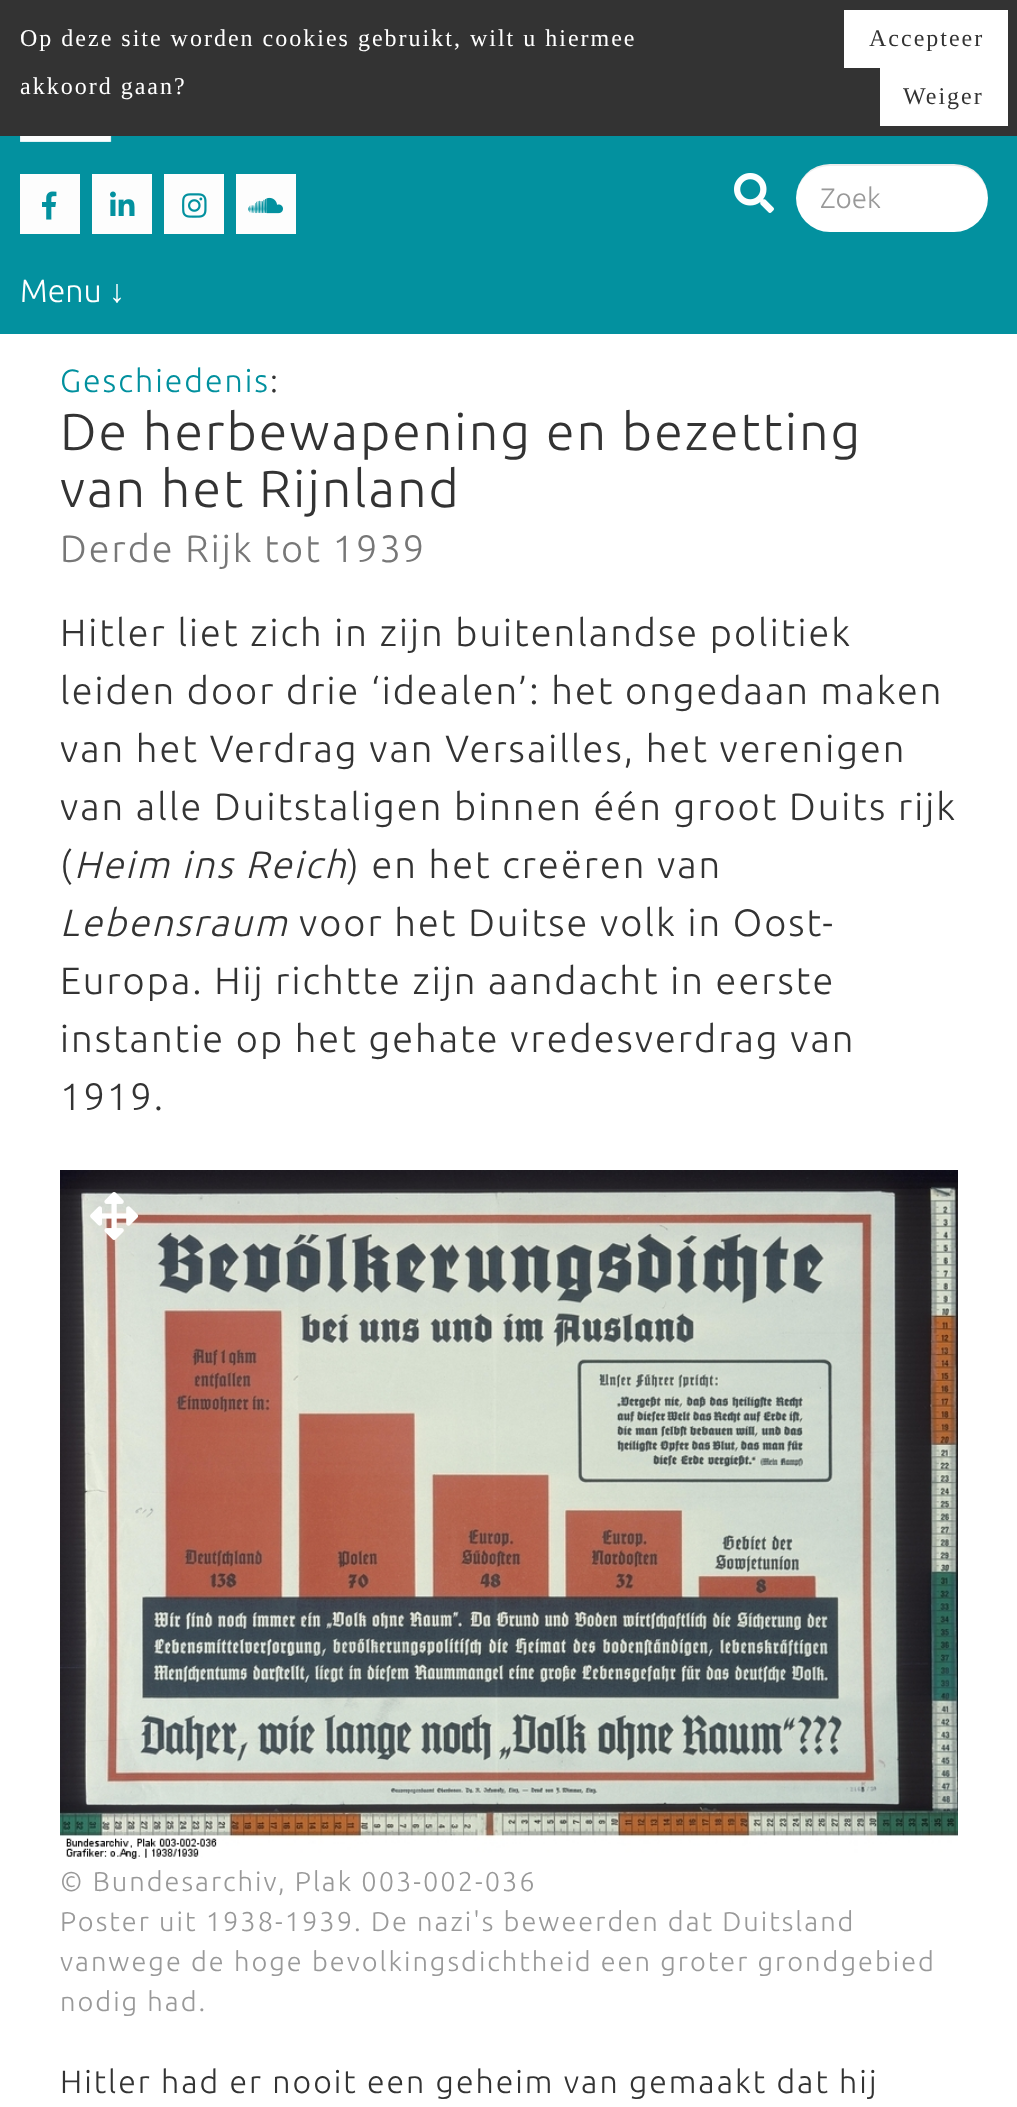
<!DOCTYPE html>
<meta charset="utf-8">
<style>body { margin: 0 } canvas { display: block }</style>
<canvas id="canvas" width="1017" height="2107"></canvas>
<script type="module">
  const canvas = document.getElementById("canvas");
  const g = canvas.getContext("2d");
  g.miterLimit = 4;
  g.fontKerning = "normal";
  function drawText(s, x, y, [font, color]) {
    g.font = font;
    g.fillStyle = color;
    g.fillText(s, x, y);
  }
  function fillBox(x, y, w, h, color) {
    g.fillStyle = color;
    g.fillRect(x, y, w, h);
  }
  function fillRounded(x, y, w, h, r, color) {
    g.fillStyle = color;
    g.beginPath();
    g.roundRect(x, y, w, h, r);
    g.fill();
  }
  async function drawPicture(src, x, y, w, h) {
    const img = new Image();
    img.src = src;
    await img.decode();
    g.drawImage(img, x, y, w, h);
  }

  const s1 = ["24px Liberation Serif", "#FFFFFF"];
  const s2 = ["24px Liberation Serif", "#333333"];
  const s3 = ["300 28px Ubuntu", "#999999"];
  const s4 = ["300 32px Ubuntu", "#FFFFFF"];
  const s5 = ["32px Liberation Serif", "#FFFFFF"];
  const s6 = ["300 32px Ubuntu", "#00909E"];
  const s7 = ["300 32px Ubuntu", "#333333"];
  const s8 = ["300 52px Ubuntu", "#333333"];
  const s9 = ["300 38px Ubuntu", "#777777"];
  const s10 = ["300 38px Ubuntu", "#333333"];
  const s11 = ["italic 300 38px Ubuntu", "#333333"];
  const s12 = ["300 27.2px Ubuntu", "#999999"];

  fillBox(0, 0, 1017, 2107, "#FFFFFF");
  fillBox(0, 0, 1017, 136, "#333333");
  g.letterSpacing = "2px";
  drawText("Op deze site worden cookies gebruikt, wilt u hiermee", 20, 46, s1);
  drawText("akkoord gaan?", 20, 94, s1);
  fillBox(844, 10, 164, 58, "#FFFFFF");
  drawText("Accepteer", 869, 46, s2);
  fillBox(880, 68, 128, 58, "#FFFFFF");
  drawText("Weiger", 903, 104, s2);
  fillBox(0, 136, 1017, 198, "#03919F");
  await drawPicture("pic1.png", 20, 136, 92, 6);
  fillBox(20, 174, 60, 60, "#FDFDFD");
  await drawPicture("pic2.png", 42, 191, 15, 29);
  fillBox(92, 174, 60, 60, "#FDFDFD");
  await drawPicture("pic3.png", 110, 191, 25, 25);
  fillBox(164, 174, 60, 60, "#FDFDFD");
  await drawPicture("pic4.png", 182, 193, 25, 25);
  fillBox(236, 174, 60, 60, "#FDFDFD");
  await drawPicture("pic5.png", 248, 197, 35, 17);
  await drawPicture("pic6.png", 734, 173, 40, 40);
  fillRounded(796, 164, 192, 68, 34, "#FFFFFF");
  g.fillStyle = "rgba(3, 3, 3, 0.07)";
  g.beginPath();
  g.moveTo(830, 166);
  g.lineTo(954, 166);
  g.bezierCurveTo(973, 166, 987, 180, 988, 199);
  g.lineTo(988, 198);
  g.bezierCurveTo(988, 179, 973, 164, 954, 164);
  g.lineTo(830, 164);
  g.bezierCurveTo(811, 164, 796, 179, 796, 198);
  g.lineTo(796, 199);
  g.bezierCurveTo(797, 180, 811, 166, 830, 166);
  g.closePath();
  g.fill();
  g.letterSpacing = "0px";
  drawText("Zoek", 820, 208, s3);
  drawText("Menu", 20, 302, s4);
  drawText("↓", 109, 302, s5);
  g.letterSpacing = "2px";
  drawText("Geschiedenis", 60, 392, s6);
  drawText(":", 270, 392, s7);
  drawText("De herbewapening en bezetting", 60, 450, s8);
  drawText("van het Rijnland", 60, 507, s8);
  drawText("Derde Rijk tot 1939", 60, 562, s9);
  drawText("Hitler liet zich in zijn buitenlandse politiek", 60, 646, s10);
  drawText("leiden door drie ‘idealen’: het ongedaan maken", 60, 704, s10);
  drawText("van het Verdrag van Versailles, het verenigen", 60, 762, s10);
  drawText("van alle Duitstaligen binnen één groot Duits rijk", 60, 820, s10);
  drawText("(", 60, 878, s10);
  drawText("Heim ins Reich", 74, 878, s11);
  drawText(") en het creëren van", 347, 878, s10);
  drawText("Lebensraum", 60, 936, s11);
  drawText("voor het Duitse volk in Oost-", 299, 936, s10);
  drawText("Europa. Hij richtte zijn aandacht in eerste", 60, 994, s10);
  drawText("instantie op het gehate vredesverdrag van", 60, 1052, s10);
  drawText("1919.", 60, 1110, s10);
  await drawPicture("pic7.png", 60, 1170, 898, 689);
  await drawPicture("pic8.png", 90, 1192, 49, 48);
  drawText("© Bundesarchiv, Plak 003-002-036", 60, 1891, s12);
  drawText("Poster uit 1938-1939. De nazi's beweerden dat Duitsland", 60, 1931, s12);
  drawText("vanwege de hoge bevolkingsdichtheid een groter grondgebied", 60, 1971, s12);
  drawText("nodig had.", 60, 2011, s12);
  drawText("Hitler had er nooit een geheim van gemaakt dat hij", 60, 2093, s7);
</script>
